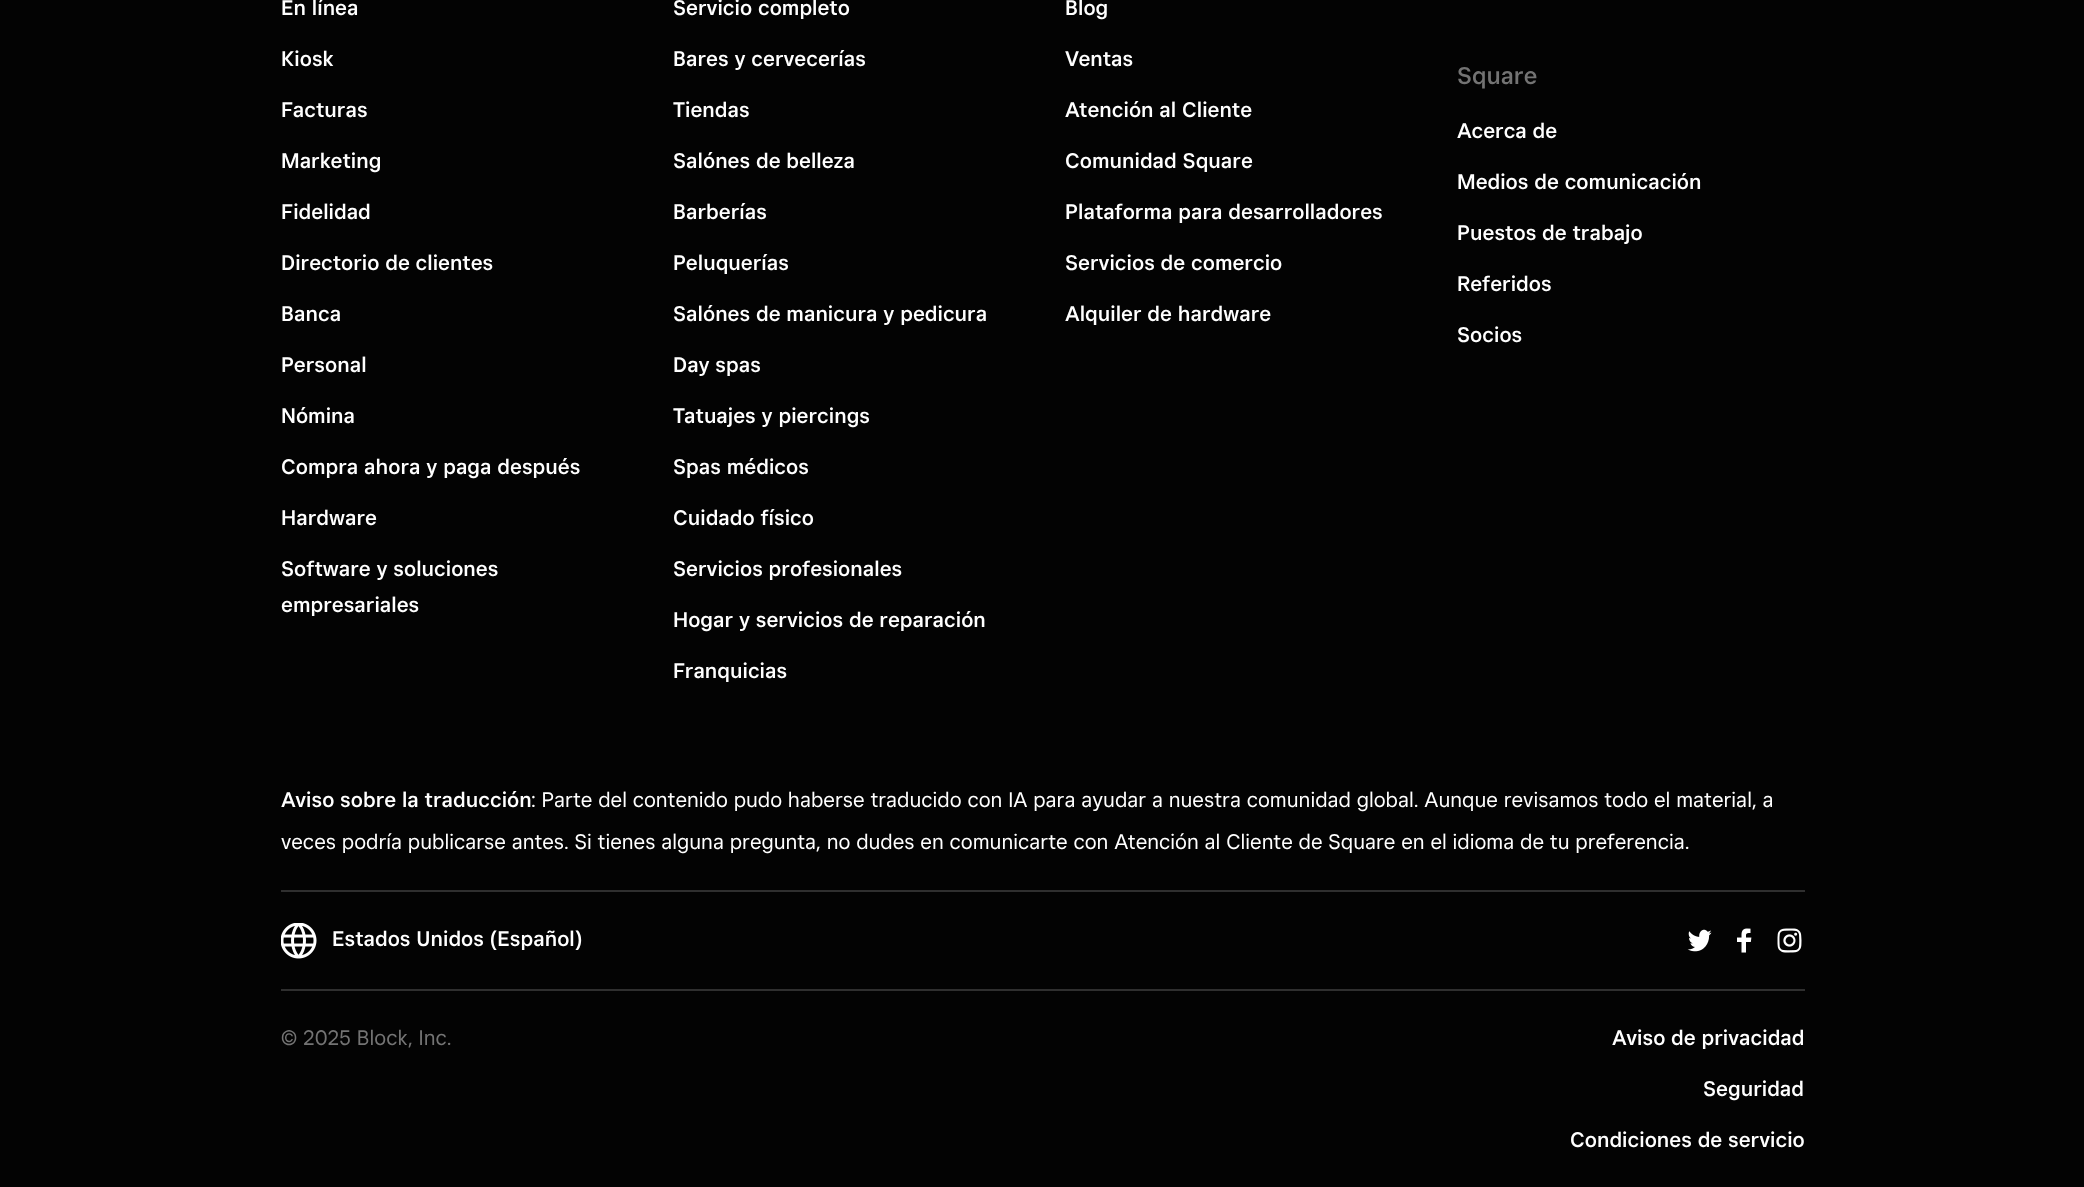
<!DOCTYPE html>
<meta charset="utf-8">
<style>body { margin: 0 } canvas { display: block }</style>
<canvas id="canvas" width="2084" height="1187"></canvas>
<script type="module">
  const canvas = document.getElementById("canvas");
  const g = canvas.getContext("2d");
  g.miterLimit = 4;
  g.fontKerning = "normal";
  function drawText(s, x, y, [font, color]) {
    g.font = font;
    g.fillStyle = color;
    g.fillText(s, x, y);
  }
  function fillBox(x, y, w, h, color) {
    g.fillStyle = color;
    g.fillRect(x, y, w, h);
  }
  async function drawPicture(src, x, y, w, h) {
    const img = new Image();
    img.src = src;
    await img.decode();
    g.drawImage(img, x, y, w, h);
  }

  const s1 = ["500 21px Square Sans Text", "#FFFFFF"];
  const s2 = ["500 24px Square Sans Text", "#737373"];
  const s3 = ["21px Square Sans Text", "#FFFFFF"];
  const s4 = ["21px Square Sans Text", "#737373"];

  fillBox(0, 0, 2084, 1187, "#030303");
  drawText("En línea", 281, 15, s1);
  drawText("Kiosk", 281, 66, s1);
  drawText("Facturas", 281, 117, s1);
  drawText("Marketing", 281, 168, s1);
  drawText("Fidelidad", 281, 219, s1);
  drawText("Directorio de clientes", 281, 270, s1);
  drawText("Banca", 281, 321, s1);
  drawText("Personal", 281, 372, s1);
  drawText("Nómina", 281, 423, s1);
  drawText("Compra ahora y paga después", 281, 474, s1);
  drawText("Hardware", 281, 525, s1);
  drawText("Software y soluciones", 281, 576, s1);
  drawText("empresariales", 281, 612, s1);
  drawText("Servicio completo", 673, 15, s1);
  drawText("Bares y cervecerías", 673, 66, s1);
  drawText("Tiendas", 673, 117, s1);
  drawText("Salónes de belleza", 673, 168, s1);
  drawText("Barberías", 673, 219, s1);
  drawText("Peluquerías", 673, 270, s1);
  drawText("Salónes de manicura y pedicura", 673, 321, s1);
  drawText("Day spas", 673, 372, s1);
  drawText("Tatuajes y piercings", 673, 423, s1);
  drawText("Spas médicos", 673, 474, s1);
  drawText("Cuidado físico", 673, 525, s1);
  drawText("Servicios profesionales", 673, 576, s1);
  drawText("Hogar y servicios de reparación", 673, 627, s1);
  drawText("Franquicias", 673, 678, s1);
  drawText("Blog", 1065, 15, s1);
  drawText("Ventas", 1065, 66, s1);
  drawText("Atención al Cliente", 1065, 117, s1);
  drawText("Comunidad Square", 1065, 168, s1);
  drawText("Plataforma para desarrolladores", 1065, 219, s1);
  drawText("Servicios de comercio", 1065, 270, s1);
  drawText("Alquiler de hardware", 1065, 321, s1);
  drawText("Square", 1457, 84, s2);
  drawText("Acerca de", 1457, 138, s1);
  drawText("Medios de comunicación", 1457, 189, s1);
  drawText("Puestos de trabajo", 1457, 240, s1);
  drawText("Referidos", 1457, 291, s1);
  drawText("Socios", 1457, 342, s1);
  drawText("Aviso sobre la traducción", 281, 807, s1);
  drawText(": Parte del contenido pudo haberse traducido con IA para ayudar a nuestra comunidad global. Aunque revisamos todo el material, a", 531, 807, s3);
  drawText("veces podría publicarse antes. Si tienes alguna pregunta, no dudes en comunicarte con Atención al Cliente de Square en el idioma de tu preferencia.", 281, 849, s3);
  fillBox(281, 890, 1524, 2, "#2F2F2F");
  fillBox(281, 989, 1524, 2, "#2F2F2F");
  await drawPicture("pic1.png", 281, 923, 36, 36);
  drawText("Estados Unidos (Español)", 332, 946, s1);
  await drawPicture("pic2.png", 1687, 929, 25, 23);
  await drawPicture("pic3.png", 1737, 928, 15, 25);
  await drawPicture("pic4.png", 1777, 928, 25, 25);
  drawText("© 2025 Block, Inc.", 281, 1045, s4);
  drawText("Aviso de privacidad", 1612, 1045, s1);
  drawText("Seguridad", 1703, 1096, s1);
  drawText("Condiciones de servicio", 1570, 1147, s1);
</script>
